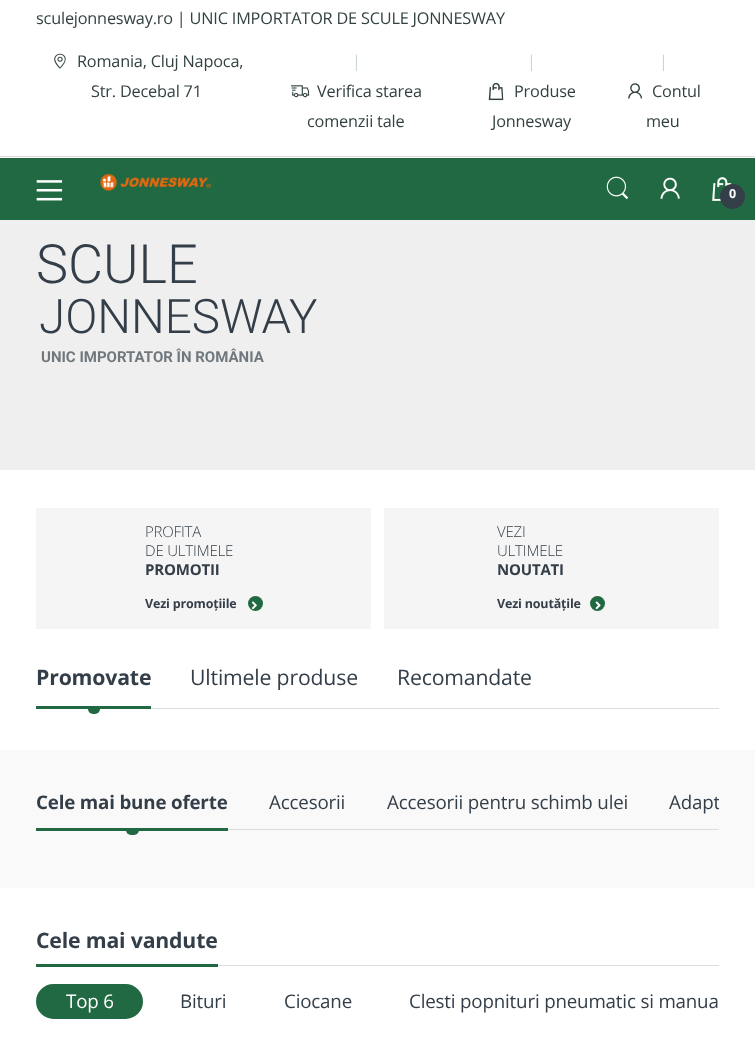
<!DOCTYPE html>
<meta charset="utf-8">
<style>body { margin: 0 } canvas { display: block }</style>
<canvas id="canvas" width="755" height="1064"></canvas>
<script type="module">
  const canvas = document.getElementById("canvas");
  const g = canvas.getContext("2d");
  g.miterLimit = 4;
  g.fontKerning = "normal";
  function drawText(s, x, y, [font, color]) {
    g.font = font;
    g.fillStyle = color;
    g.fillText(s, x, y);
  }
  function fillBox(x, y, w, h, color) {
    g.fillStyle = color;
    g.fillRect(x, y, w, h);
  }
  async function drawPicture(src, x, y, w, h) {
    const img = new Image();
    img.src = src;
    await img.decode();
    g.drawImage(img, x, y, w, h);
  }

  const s1 = ["16.25px Open Sans", "#334141"];
  const s2 = ["16.25px Open Sans", "#CAD5D5"];
  const s3 = ["bold 12.5px Open Sans", "#FFFFFF"];
  const s4 = ["300 54px Roboto", "#333E48"];
  const s5 = ["300 47.5px Roboto", "#333E48"];
  const s6 = ["bold 15px Roboto", "#70787E"];
  const s7 = ["300 15px Open Sans", "#333E48"];
  const s8 = ["bold 15px Open Sans", "#333E48"];
  const s9 = ["bold 12.5px Open Sans", "#333E48"];
  const s10 = ["bold 21.25px Open Sans", "#333E48"];
  const s11 = ["21.25px Open Sans", "#333E48"];
  const s12 = ["bold 18.75px Open Sans", "#333E48"];
  const s13 = ["18.75px Open Sans", "#333E48"];
  const s14 = ["18.75px Open Sans", "#FFFFFF"];

  fillBox(0, 0, 755, 1064, "#FFFFFF");
  fillBox(0, 156, 755, 1, "#DDDDDD");
  g.letterSpacing = "-0.18px";
  drawText("sculejonnesway.ro | UNIC IMPORTATOR DE SCULE JONNESWAY", 36, 24, s1);
  await drawPicture("pic1.png", 54, 53, 12, 16);
  drawText("Romania, Cluj Napoca,", 77, 67, s1);
  drawText("Str. Decebal 71", 91, 97, s1);
  drawText("|", 352, 67, s2);
  await drawPicture("pic2.png", 291, 85, 19, 13);
  drawText("Verifica starea", 317, 97, s1);
  drawText("comenzii tale", 307, 127, s1);
  drawText("|", 527, 67, s2);
  await drawPicture("pic3.png", 488, 82, 16, 19);
  drawText("Produse", 514, 97, s1);
  drawText("Jonnesway", 492, 127, s1);
  drawText("|", 659, 67, s2);
  await drawPicture("pic4.png", 628, 83, 15, 16);
  drawText("Contul", 652, 97, s1);
  drawText("meu", 646, 127, s1);
  fillBox(0, 158, 755, 62, "#216942");
  await drawPicture("pic5.png", 36, 180, 27, 21);
  await drawPicture("pic6.png", 100, 173, 112, 18);
  await drawPicture("pic7.png", 606, 176, 23, 24);
  await drawPicture("pic8.png", 660, 177, 20, 22);
  await drawPicture("pic9.png", 712, 177, 20, 24);
  g.fillStyle = "#333E48";
  g.beginPath();
  g.arc(732.5, 196.5, 12.5, 0, Math.PI * 2);
  g.fill();
  drawText("0", 729, 198, s3);
  fillBox(0, 220, 755, 250, "#EFEFEF");
  g.letterSpacing = "0px";
  drawText("SCULE", 36, 283, s4);
  drawText("JONNESWAY", 39, 333, s5);
  drawText("UNIC IMPORTATOR ÎN ROMÂNIA", 41, 362, s6);
  fillBox(36, 508, 335, 121, "#F5F5F5");
  g.letterSpacing = "-0.18px";
  drawText("PROFITA", 145, 537, s7);
  drawText("DE ULTIMELE", 145, 556, s7);
  drawText("PROMOTII", 145, 575, s8);
  drawText("Vezi promoțiile", 145, 608, s9);
  g.fillStyle = "#216942";
  g.beginPath();
  g.arc(255.5, 603.5, 7.5, 0, Math.PI * 2);
  g.fill();
  await drawPicture("pic10.png", 251, 601, 6, 9);
  fillBox(384, 508, 335, 121, "#F5F5F5");
  drawText("VEZI", 497, 537, s7);
  drawText("ULTIMELE", 497, 556, s7);
  drawText("NOUTATI", 497, 575, s8);
  drawText("Vezi noutățile", 497, 608, s9);
  g.fillStyle = "#216942";
  g.beginPath();
  g.arc(597.5, 603.5, 7.5, 0, Math.PI * 2);
  g.fill();
  await drawPicture("pic11.png", 595, 601, 6, 9);
  drawText("Promovate", 36, 685, s10);
  fillBox(36, 706, 115, 3, "#216942");
  g.beginPath();
  g.roundRect(88, 709, 12, 5, [0, 0, 5, 5]);
  g.fill();
  drawText("Ultimele produse", 190, 685, s11);
  drawText("Recomandate", 397, 685, s11);
  fillBox(151, 708, 568, 1, "#DDDDDD");
  fillBox(0, 750, 755, 138, "#F9F9F9");
  drawText("Cele mai bune oferte", 36, 809, s12);
  g.fillStyle = "#216942";
  g.beginPath();
  g.roundRect(126, 830, 13, 5, [0, 0, 5, 5]);
  g.fill();
  fillBox(36, 828, 192, 3, "#216942");
  drawText("Accesorii", 269, 809, s13);
  drawText("Accesorii pentru schimb ulei", 387, 809, s13);
  g.save();
  g.beginPath();
  g.rect(36, 781, 683, 55);
  g.clip();
  drawText("Adapt", 669, 809, s13);
  g.restore();
  fillBox(228, 829, 491, 1, "#DDDDDD");
  drawText("Cele mai vandute", 36, 948, s10);
  fillBox(36, 964, 182, 3, "#216942");
  fillBox(218, 965, 501, 1, "#DDDDDD");
  g.fillStyle = "#216942";
  g.beginPath();
  g.roundRect(37.5, 985.5, 104, 32, 16);
  g.fill();
  g.strokeStyle = "#216942";
  g.lineWidth = 3;
  g.stroke();
  drawText("Top 6", 66, 1008, s14);
  drawText("Bituri", 180, 1008, s13);
  drawText("Ciocane", 284, 1008, s13);
  drawText("Clesti popnituri pneumatic si manua", 409, 1008, s13);
</script>
